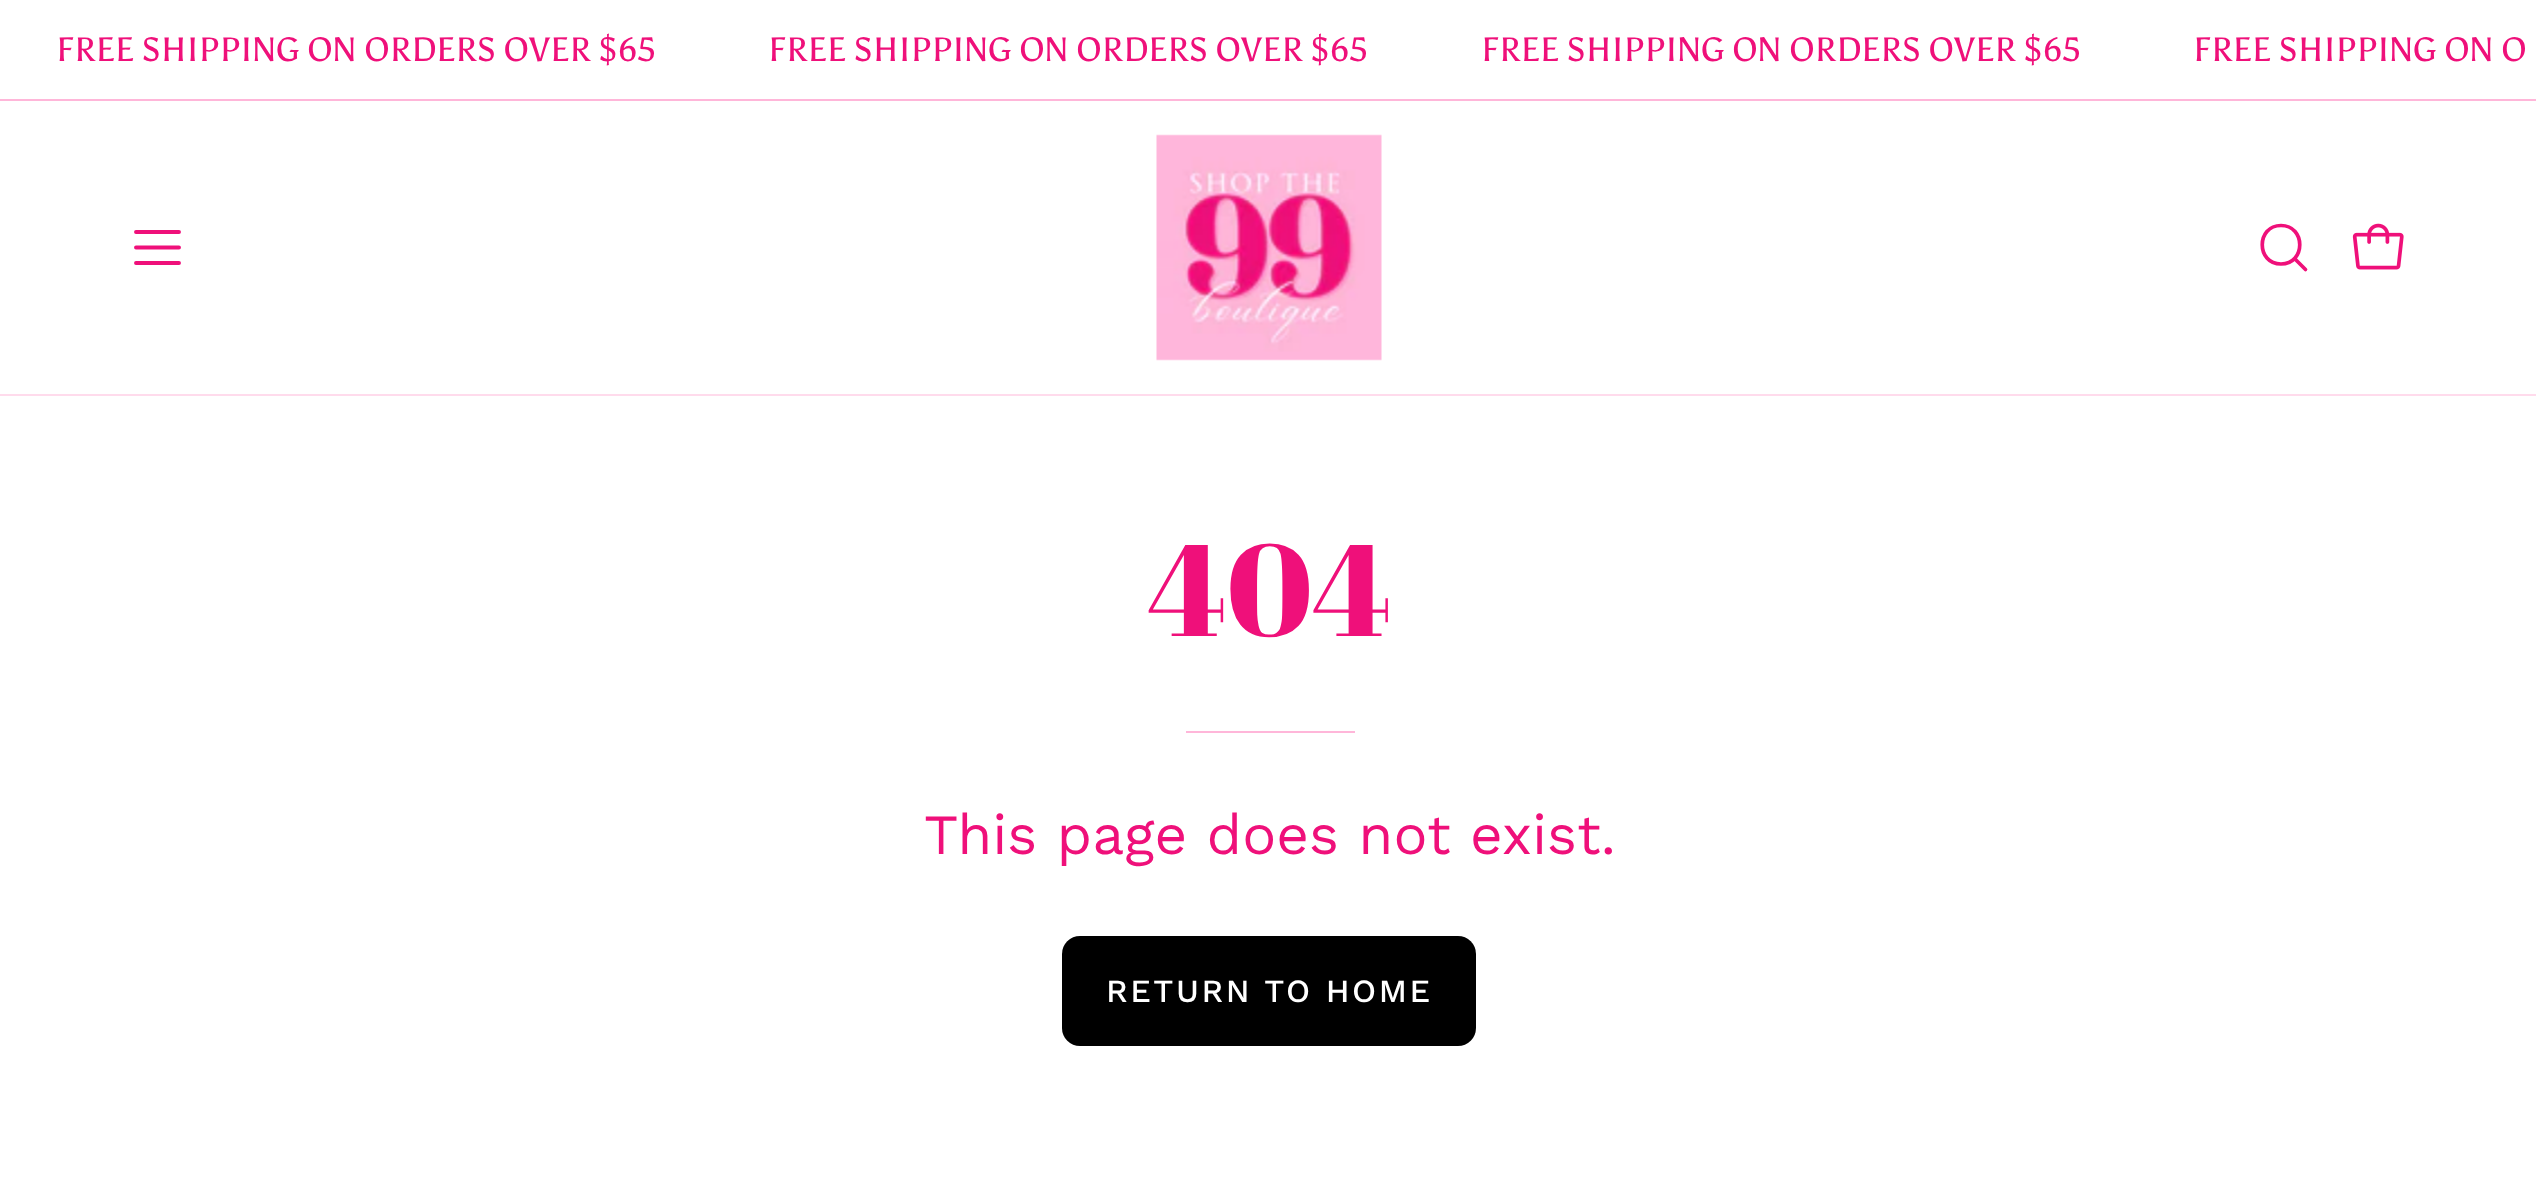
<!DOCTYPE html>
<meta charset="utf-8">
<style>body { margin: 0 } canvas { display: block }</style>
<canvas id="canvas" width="2536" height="1181"></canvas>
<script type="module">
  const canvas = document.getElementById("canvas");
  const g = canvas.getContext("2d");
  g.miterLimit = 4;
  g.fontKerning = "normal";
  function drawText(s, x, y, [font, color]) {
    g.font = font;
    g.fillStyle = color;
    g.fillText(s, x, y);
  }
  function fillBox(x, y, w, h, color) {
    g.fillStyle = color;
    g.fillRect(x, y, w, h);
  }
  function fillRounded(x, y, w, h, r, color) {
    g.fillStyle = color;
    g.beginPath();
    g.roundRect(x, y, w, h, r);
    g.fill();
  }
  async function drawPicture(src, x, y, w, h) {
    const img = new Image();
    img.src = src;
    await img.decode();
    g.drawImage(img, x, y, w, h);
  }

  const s1 = ["33.75px Asul", "#EF107A"];
  const s2 = ["130px Abril Fatface", "#EF107A"];
  const s3 = ["56.75px Work Sans", "#EF107A"];
  const s4 = ["500 32.4px Work Sans", "#FFFFFF"];

  fillBox(0, 0, 2536, 1181, "#FFFFFF");
  fillBox(0, 99, 2536, 2, "#FFB6D9");
  drawText("FREE SHIPPING ON ORDERS OVER $65", 56, 61, s1);
  drawText("FREE SHIPPING ON ORDERS OVER $65", 768, 61, s1);
  drawText("FREE SHIPPING ON ORDERS OVER $65", 1481, 61, s1);
  drawText("FREE SHIPPING ON O", 2193, 61, s1);
  g.beginPath();
  g.moveTo(136, 247.5);
  g.lineTo(179, 247.5);
  g.moveTo(136, 232);
  g.lineTo(179, 232);
  g.moveTo(136, 263);
  g.lineTo(179, 263);
  g.strokeStyle = "#EF107A";
  g.lineWidth = 3.9;
  g.lineCap = "round";
  g.lineJoin = "round";
  g.stroke();
  await drawPicture("pic1.png", 1156, 134, 226, 227);
  g.beginPath();
  g.moveTo(2281, 264);
  g.bezierCurveTo(2306, 264, 2306, 225.5, 2281, 225.5);
  g.bezierCurveTo(2256, 225.5, 2256, 264, 2281, 264);
  g.closePath();
  g.moveTo(2294.5, 258.5);
  g.lineTo(2305.5, 269.5);
  g.lineWidth = 3.7;
  g.stroke();
  await drawPicture("pic2.png", 2352, 223, 52, 47);
  fillBox(0, 394, 2536, 2, "#FFDBEC");
  drawText("404", 1148, 636, s2);
  fillBox(1186, 731, 169, 2, "#FFB6D9");
  drawText("This page does not exist.", 924, 854, s3);
  fillRounded(1062, 936, 414, 110, 18, "#000000");
  g.letterSpacing = "2.5px";
  drawText("RETURN TO HOME", 1106, 1002, s4);
</script>
